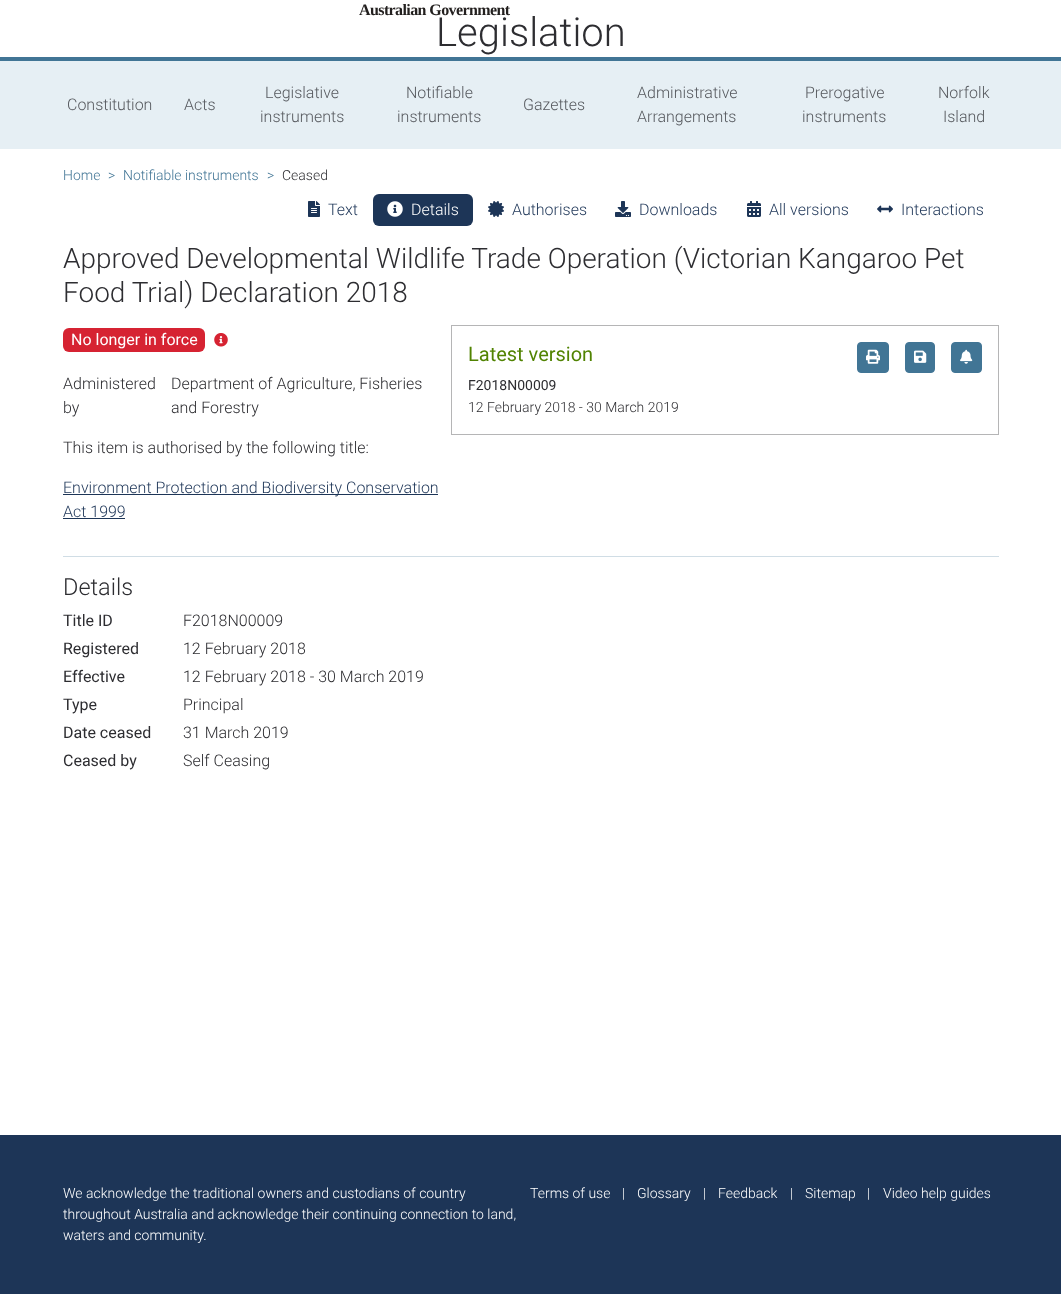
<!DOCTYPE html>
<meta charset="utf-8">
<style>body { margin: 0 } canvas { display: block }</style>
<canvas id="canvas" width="1061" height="1294"></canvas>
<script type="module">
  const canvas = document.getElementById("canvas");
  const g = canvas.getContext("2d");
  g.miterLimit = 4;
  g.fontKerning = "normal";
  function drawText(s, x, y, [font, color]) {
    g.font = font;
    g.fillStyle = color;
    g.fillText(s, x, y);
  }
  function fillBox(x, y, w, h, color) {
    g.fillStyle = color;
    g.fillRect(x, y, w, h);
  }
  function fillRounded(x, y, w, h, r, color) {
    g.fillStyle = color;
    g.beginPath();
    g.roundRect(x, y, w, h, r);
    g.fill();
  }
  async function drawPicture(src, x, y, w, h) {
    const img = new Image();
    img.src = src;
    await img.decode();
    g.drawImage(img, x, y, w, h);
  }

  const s1 = ["bold 16px Liberation Serif", "#23201F"];
  const s2 = ["300 40px Roboto", "#2D2D31"];
  const s3 = ["300 16px Roboto", "#56595E"];
  const s4 = ["300 14px Roboto", "#417595"];
  const s5 = ["300 14px Roboto", "#2D2D31"];
  const s6 = ["300 16px Roboto", "#1D3557"];
  const s7 = ["300 16px Roboto", "#FFFFFF"];
  const s8 = ["300 28px Roboto", "#2D2D31"];
  const s9 = ["16px Roboto", "#FFFFFF"];
  const s10 = ["300 16px Roboto", "#2D2D31"];
  const s11 = ["20px Roboto", "#518302"];
  const s12 = ["14px Roboto", "#2D2D31"];
  const s13 = ["300 23.5px Roboto", "#2D2D31"];
  const s14 = ["16px Roboto", "#2D2D31"];
  const s15 = ["300 14px Roboto", "#FFFFFF"];

  fillBox(0, 0, 1061, 1294, "#FFFFFF");
  fillBox(0, 57, 1061, 4, "#417595");
  g.letterSpacing = "-0.6px";
  drawText("Australian Government", 359, 15, s1);
  g.letterSpacing = "0px";
  drawText("Legislation", 436, 46, s2);
  fillBox(0, 61, 1061, 88, "#E6EFF4");
  drawText("Constitution", 67, 110, s3);
  drawText("Acts", 184, 110, s3);
  drawText("Legislative", 265, 98, s3);
  drawText("instruments", 260, 122, s3);
  drawText("Notifiable", 406, 98, s3);
  drawText("instruments", 397, 122, s3);
  drawText("Gazettes", 523, 110, s3);
  drawText("Administrative", 637, 98, s3);
  drawText("Arrangements", 637, 122, s3);
  drawText("Prerogative", 805, 98, s3);
  drawText("instruments", 802, 122, s3);
  drawText("Norfolk", 938, 98, s3);
  drawText("Island", 943, 122, s3);
  drawText("Home", 63, 180, s4);
  drawText(">", 108, 180, s4);
  drawText("Notifiable instruments", 123, 180, s4);
  drawText(">", 267, 180, s4);
  drawText("Ceased", 282, 180, s5);
  await drawPicture("pic1.png", 308, 201, 12, 16);
  drawText("Text", 328, 215, s6);
  fillRounded(373, 194, 100, 32, 6, "#1D3557");
  await drawPicture("pic2.png", 387, 201, 16, 16);
  drawText("Details", 411, 215, s7);
  await drawPicture("pic3.png", 488, 201, 16, 16);
  drawText("Authorises", 512, 215, s6);
  await drawPicture("pic4.png", 615, 201, 16, 16);
  drawText("Downloads", 639, 215, s6);
  await drawPicture("pic5.png", 747, 201, 14, 16);
  drawText("All versions", 769, 215, s6);
  await drawPicture("pic6.png", 877, 205, 16, 8);
  drawText("Interactions", 901, 215, s6);
  drawText("Approved Developmental Wildlife Trade Operation (Victorian Kangaroo Pet", 63, 268, s8);
  drawText("Food Trial) Declaration 2018", 63, 302, s8);
  fillRounded(63, 328, 142, 24, 6, "#D62332");
  drawText("No longer in force", 71, 345, s9);
  await drawPicture("pic7.png", 214, 333, 14, 14);
  drawText("Administered", 63, 389, s10);
  drawText("by", 63, 413, s10);
  drawText("Department of Agriculture, Fisheries", 171, 389, s10);
  drawText("and Forestry", 171, 413, s10);
  drawText("This item is authorised by the following title:", 63, 453, s10);
  fillBox(63, 494, 375, 1, "#1D3557");
  drawText("Environment Protection and Biodiversity Conservation", 63, 493, s6);
  drawText("Act 1999", 63, 517, s6);
  fillBox(63, 518, 62, 1, "#1D3557");
  g.strokeStyle = "#B5B5B6";
  g.strokeRect(451.5, 325.5, 547, 109);
  drawText("Latest version", 468, 361, s11);
  g.fillStyle = "#417595";
  g.beginPath();
  g.roundRect(857.5, 342.5, 31, 30, 3.5);
  g.fill();
  g.strokeStyle = "#417595";
  g.stroke();
  await drawPicture("pic8.png", 866, 349, 14, 15);
  g.beginPath();
  g.roundRect(905.5, 342.5, 29, 30, 3.5);
  g.fill();
  g.stroke();
  await drawPicture("pic9.png", 914, 350, 13, 13);
  g.beginPath();
  g.roundRect(951.5, 342.5, 30, 30, 3.5);
  g.fill();
  g.stroke();
  await drawPicture("pic10.png", 960, 349, 13, 15);
  drawText("F2018N00009", 468, 390, s12);
  drawText("12 February 2018 - 30 March 2019", 468, 412, s5);
  fillBox(63, 556, 936, 1, "#D0DDE5");
  drawText("Details", 63, 595, s13);
  drawText("Title ID", 63, 626, s14);
  drawText("F2018N00009", 183, 626, s10);
  drawText("Registered", 63, 654, s14);
  drawText("12 February 2018", 183, 654, s10);
  drawText("Effective", 63, 682, s14);
  drawText("12 February 2018 - 30 March 2019", 183, 682, s10);
  drawText("Type", 63, 710, s14);
  drawText("Principal", 183, 710, s10);
  drawText("Date ceased", 63, 738, s14);
  drawText("31 March 2019", 183, 738, s10);
  drawText("Ceased by", 63, 766, s14);
  drawText("Self Ceasing", 183, 766, s10);
  fillBox(0, 1135, 1061, 159, "#1D3557");
  drawText("We acknowledge the traditional owners and custodians of country", 63, 1198, s15);
  drawText("throughout Australia and acknowledge their continuing connection to land,", 63, 1219, s15);
  drawText("waters and community.", 63, 1240, s15);
  drawText("Terms of use", 530, 1198, s15);
  drawText("|", 622, 1198, s15);
  drawText("Glossary", 637, 1198, s15);
  drawText("|", 703, 1198, s15);
  drawText("Feedback", 718, 1198, s15);
  drawText("|", 790, 1198, s15);
  drawText("Sitemap", 805, 1198, s15);
  drawText("|", 867, 1198, s15);
  drawText("Video help guides", 883, 1198, s15);
</script>
